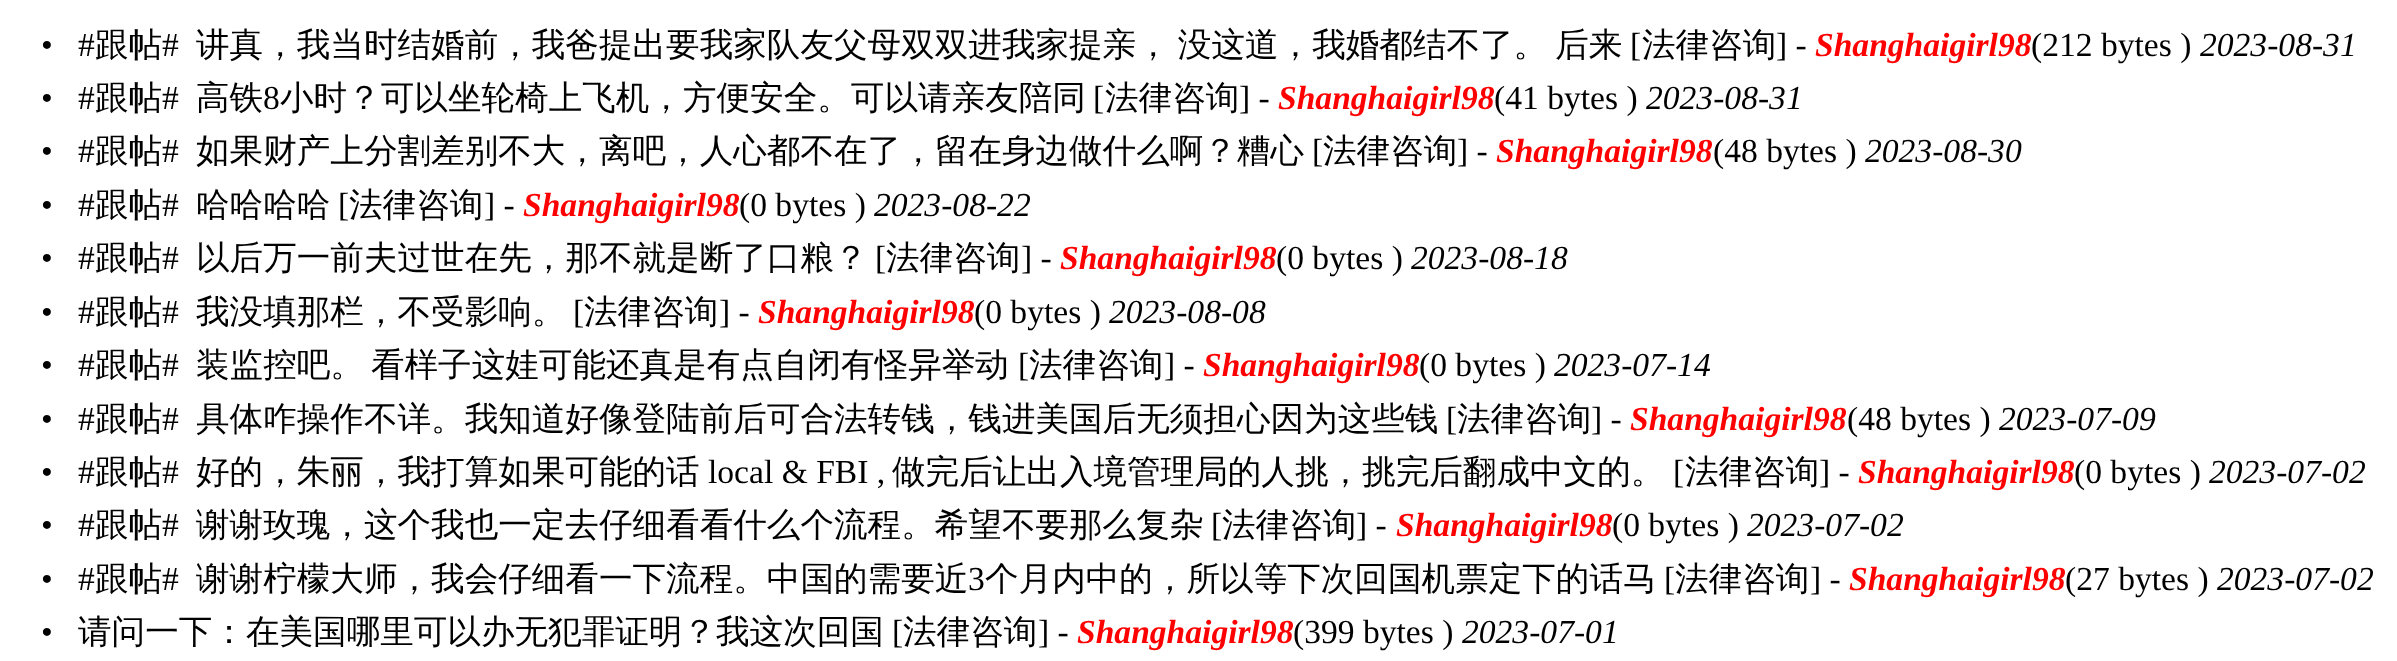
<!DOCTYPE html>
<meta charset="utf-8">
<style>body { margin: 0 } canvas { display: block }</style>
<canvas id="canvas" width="2397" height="661"></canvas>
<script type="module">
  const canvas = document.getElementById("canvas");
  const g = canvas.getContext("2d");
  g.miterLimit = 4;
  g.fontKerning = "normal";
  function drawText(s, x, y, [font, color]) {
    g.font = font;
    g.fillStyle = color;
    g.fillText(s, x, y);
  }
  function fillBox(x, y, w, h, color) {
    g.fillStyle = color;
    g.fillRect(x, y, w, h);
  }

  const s1 = ["33.6px Liberation Serif", "#000000"];
  const s2 = ["500 33.6px WenQuanYi Zen Hei", "#000000"];
  const s3 = ["italic bold 33.6px Liberation Serif", "#FF0000"];
  const s4 = ["italic 33.6px Liberation Serif", "#000000"];

  fillBox(0, 0, 2397, 661, "#FFFFFF");
  drawText("•", 41, 56, s1);
  drawText("#", 78, 56, s1);
  drawText("跟帖", 95, 56, s2);
  drawText("#", 162, 56, s1);
  g.wordSpacing = "-2px";
  drawText("讲真，我当时结婚前，我爸提出要我家队友父母双双进我家提亲， 没这道，我婚都结不了。 后来", 196, 56, s2);
  g.wordSpacing = "0px";
  drawText("[", 1630, 56, s1);
  drawText("法律咨询", 1642, 56, s2);
  drawText("] -", 1776, 56, s1);
  drawText("Shanghaigirl98", 1815, 56, s3);
  drawText("(212 bytes )", 2031, 56, s1);
  drawText("2023-08-31", 2200, 56, s4);
  drawText("•", 41, 109, s1);
  drawText("#", 78, 109, s1);
  drawText("跟帖", 95, 109, s2);
  drawText("#", 162, 109, s1);
  drawText("高铁", 196, 109, s2);
  drawText("8", 263, 109, s1);
  drawText("小时？可以坐轮椅上飞机，方便安全。可以请亲友陪同", 280, 109, s2);
  drawText("[", 1093, 109, s1);
  drawText("法律咨询", 1105, 109, s2);
  drawText("] -", 1239, 109, s1);
  drawText("Shanghaigirl98", 1278, 109, s3);
  drawText("(41 bytes )", 1494, 109, s1);
  drawText("2023-08-31", 1646, 109, s4);
  drawText("•", 41, 162, s1);
  drawText("#", 78, 162, s1);
  drawText("跟帖", 95, 162, s2);
  drawText("#", 162, 162, s1);
  drawText("如果财产上分割差别不大，离吧，人心都不在了，留在身边做什么啊？糟心", 196, 162, s2);
  drawText("[", 1312, 162, s1);
  drawText("法律咨询", 1323, 162, s2);
  drawText("] -", 1457, 162, s1);
  drawText("Shanghaigirl98", 1496, 162, s3);
  drawText("(48 bytes )", 1713, 162, s1);
  drawText("2023-08-30", 1865, 162, s4);
  drawText("•", 41, 216, s1);
  drawText("#", 78, 216, s1);
  drawText("跟帖", 95, 216, s2);
  drawText("#", 162, 216, s1);
  drawText("哈哈哈哈", 196, 216, s2);
  drawText("[", 338, 216, s1);
  drawText("法律咨询", 349, 216, s2);
  drawText("] -", 484, 216, s1);
  drawText("Shanghaigirl98", 523, 216, s3);
  drawText("(0 bytes )", 739, 216, s1);
  drawText("2023-08-22", 874, 216, s4);
  drawText("•", 41, 269, s1);
  drawText("#", 78, 269, s1);
  drawText("跟帖", 95, 269, s2);
  drawText("#", 162, 269, s1);
  drawText("以后万一前夫过世在先，那不就是断了口粮？", 196, 269, s2);
  drawText("[", 875, 269, s1);
  drawText("法律咨询", 886, 269, s2);
  drawText("] -", 1021, 269, s1);
  drawText("Shanghaigirl98", 1060, 269, s3);
  drawText("(0 bytes )", 1276, 269, s1);
  drawText("2023-08-18", 1411, 269, s4);
  drawText("•", 41, 323, s1);
  drawText("#", 78, 323, s1);
  drawText("跟帖", 95, 323, s2);
  drawText("#", 162, 323, s1);
  drawText("我没填那栏，不受影响。", 196, 323, s2);
  drawText("[", 573, 323, s1);
  drawText("法律咨询", 584, 323, s2);
  drawText("] -", 719, 323, s1);
  drawText("Shanghaigirl98", 758, 323, s3);
  drawText("(0 bytes )", 974, 323, s1);
  drawText("2023-08-08", 1109, 323, s4);
  drawText("•", 41, 376, s1);
  drawText("#", 78, 376, s1);
  drawText("跟帖", 95, 376, s2);
  drawText("#", 162, 376, s1);
  g.wordSpacing = "-3px";
  drawText("装监控吧。 看样子这娃可能还真是有点自闭有怪异举动", 196, 376, s2);
  g.wordSpacing = "0px";
  drawText("[", 1018, 376, s1);
  drawText("法律咨询", 1029, 376, s2);
  drawText("] -", 1164, 376, s1);
  drawText("Shanghaigirl98", 1203, 376, s3);
  drawText("(0 bytes )", 1419, 376, s1);
  drawText("2023-07-14", 1554, 376, s4);
  drawText("•", 41, 430, s1);
  drawText("#", 78, 430, s1);
  drawText("跟帖", 95, 430, s2);
  drawText("#", 162, 430, s1);
  drawText("具体咋操作不详。我知道好像登陆前后可合法转钱，钱进美国后无须担心因为这些钱", 196, 430, s2);
  drawText("[", 1446, 430, s1);
  drawText("法律咨询", 1457, 430, s2);
  drawText("] -", 1591, 430, s1);
  drawText("Shanghaigirl98", 1630, 430, s3);
  drawText("(48 bytes )", 1847, 430, s1);
  drawText("2023-07-09", 1999, 430, s4);
  drawText("•", 41, 483, s1);
  drawText("#", 78, 483, s1);
  drawText("跟帖", 95, 483, s2);
  drawText("#", 162, 483, s1);
  drawText("好的，朱丽，我打算如果可能的话", 196, 483, s2);
  drawText("local & FBI ,", 708, 483, s1);
  drawText("做完后让出入境管理局的人挑，挑完后翻成中文的。", 892, 483, s2);
  drawText("[", 1673, 483, s1);
  drawText("法律咨询", 1685, 483, s2);
  drawText("] -", 1819, 483, s1);
  drawText("Shanghaigirl98", 1858, 483, s3);
  drawText("(0 bytes )", 2074, 483, s1);
  drawText("2023-07-02", 2209, 483, s4);
  drawText("•", 41, 536, s1);
  drawText("#", 78, 536, s1);
  drawText("跟帖", 95, 536, s2);
  drawText("#", 162, 536, s1);
  drawText("谢谢玫瑰，这个我也一定去仔细看看什么个流程。希望不要那么复杂", 196, 536, s2);
  drawText("[", 1211, 536, s1);
  drawText("法律咨询", 1222, 536, s2);
  drawText("] -", 1356, 536, s1);
  drawText("Shanghaigirl98", 1396, 536, s3);
  drawText("(0 bytes )", 1612, 536, s1);
  drawText("2023-07-02", 1747, 536, s4);
  drawText("•", 41, 590, s1);
  drawText("#", 78, 590, s1);
  drawText("跟帖", 95, 590, s2);
  drawText("#", 162, 590, s1);
  drawText("谢谢柠檬大师，我会仔细看一下流程。中国的需要近", 196, 590, s2);
  drawText("3", 968, 590, s1);
  drawText("个月内中的，所以等下次回国机票定下的话马", 985, 590, s2);
  drawText("[", 1664, 590, s1);
  drawText("法律咨询", 1675, 590, s2);
  drawText("] -", 1810, 590, s1);
  drawText("Shanghaigirl98", 1849, 590, s3);
  drawText("(27 bytes )", 2065, 590, s1);
  drawText("2023-07-02", 2217, 590, s4);
  drawText("•", 41, 643, s1);
  drawText("请问一下：在美国哪里可以办无犯罪证明？我这次回国", 78, 643, s2);
  drawText("[", 892, 643, s1);
  drawText("法律咨询", 903, 643, s2);
  drawText("] -", 1038, 643, s1);
  drawText("Shanghaigirl98", 1077, 643, s3);
  drawText("(399 bytes )", 1293, 643, s1);
  drawText("2023-07-01", 1462, 643, s4);
</script>
